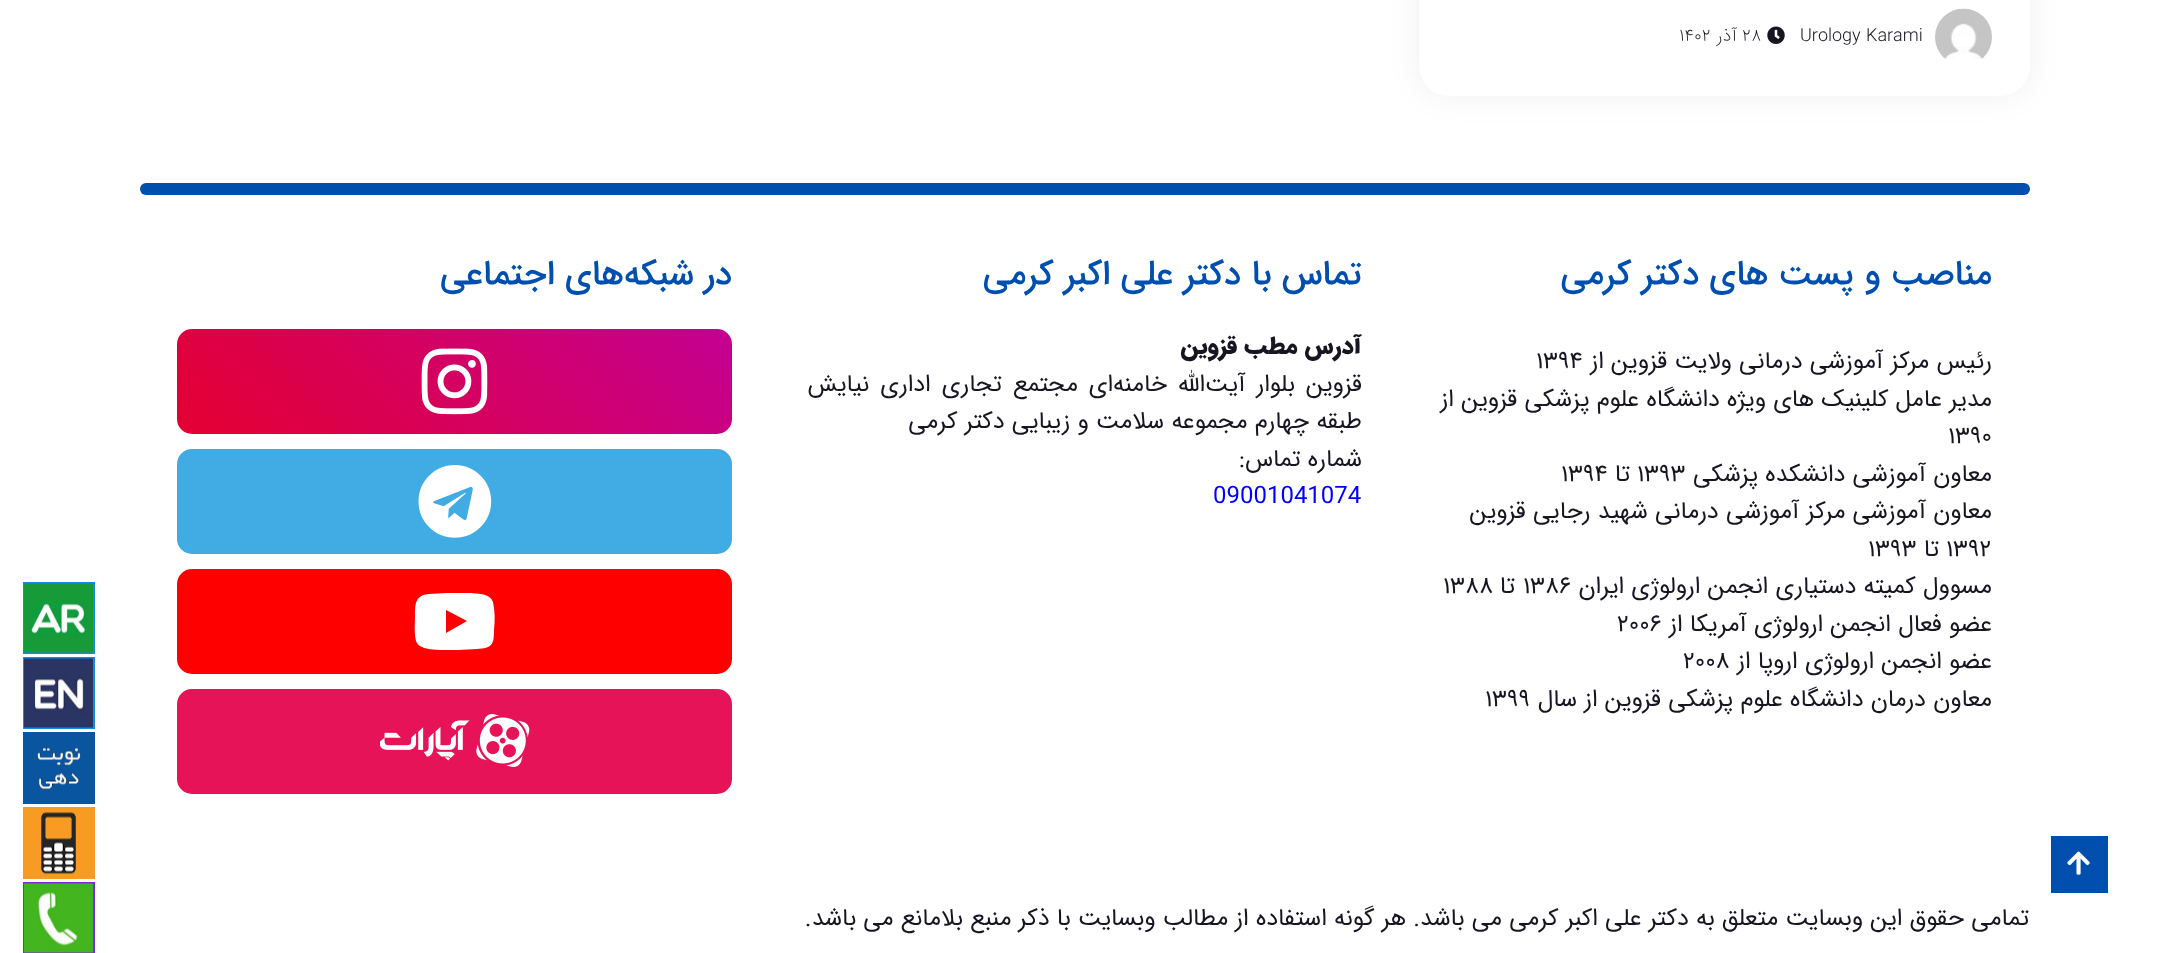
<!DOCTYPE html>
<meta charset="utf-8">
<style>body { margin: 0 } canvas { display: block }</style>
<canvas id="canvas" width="2168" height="953"></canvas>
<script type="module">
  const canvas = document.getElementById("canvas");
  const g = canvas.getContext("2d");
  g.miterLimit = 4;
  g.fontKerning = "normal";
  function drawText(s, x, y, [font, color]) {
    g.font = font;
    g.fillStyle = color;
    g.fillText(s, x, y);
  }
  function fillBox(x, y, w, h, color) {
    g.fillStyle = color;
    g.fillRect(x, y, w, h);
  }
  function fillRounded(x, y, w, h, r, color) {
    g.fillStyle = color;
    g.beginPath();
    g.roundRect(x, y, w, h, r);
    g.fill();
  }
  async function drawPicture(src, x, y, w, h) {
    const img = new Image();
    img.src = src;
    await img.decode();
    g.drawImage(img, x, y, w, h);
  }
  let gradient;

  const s1 = ["200 18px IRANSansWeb", "#181522"];
  const s2 = ["500 34.5px IRANSansWeb", "#004FAF"];
  const s3 = ["24px IRANSansWeb", "#181522"];
  const s4 = ["900 24px IRANSansWeb", "#181522"];
  const s5 = ["24px IRANSansWeb", "#0000FF"];

  fillBox(0, 0, 2168, 953, "#FFFFFF");
  g.fillStyle = "rgba(0, 0, 0, 0.06)";
  g.filter = "blur(15px)";
  g.beginPath();
  g.roundRect(1419, -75, 611, 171, 30);
  g.fill();
  g.filter = "none";
  fillRounded(1419, -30, 611, 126, 30, "#FFFFFF");
  await drawPicture("pic1.png", 1935, 8, 57, 51);
  drawText("Urology Karami", 1800, 41, s1);
  await drawPicture("pic2.png", 1767, 26, 18, 18);
  drawText("۲۸", 1742, 41, s1);
  g.direction = "rtl";
  drawText("آذر", 1737, 41, s1);
  g.direction = "ltr";
  drawText("۱۴۰۲", 1679, 41, s1);
  fillBox(2051, 836, 57, 57, "#004FAF");
  await drawPicture("pic3.png", 2067, 851, 23, 24);
  fillRounded(140, 183, 1890, 12, 6, "#004FAF");
  g.direction = "rtl";
  drawText("مناصب و پست های دکتر کرمی", 1992, 284, s2);
  drawText("رئیس مرکز آموزشی درمانی ولایت قزوین از", 1992, 368, s3);
  g.direction = "ltr";
  drawText("۱۳۹۴", 1536, 368, s3);
  g.direction = "rtl";
  drawText("مدیر عامل کلینیک های ویژه دانشگاه علوم پزشکی قزوین از", 1992, 406, s3);
  g.direction = "ltr";
  drawText("۱۳۹۰", 1948, 443, s3);
  g.direction = "rtl";
  drawText("معاون آموزشی دانشکده پزشکی", 1992, 481, s3);
  g.direction = "ltr";
  drawText("۱۳۹۳", 1637, 481, s3);
  g.direction = "rtl";
  drawText("تا", 1630, 481, s3);
  g.direction = "ltr";
  drawText("۱۳۹۴", 1561, 481, s3);
  g.direction = "rtl";
  drawText("معاون آموزشی مرکز آموزشی درمانی شهید رجایی قزوین", 1992, 518, s3);
  g.direction = "ltr";
  drawText("۱۳۹۲", 1946, 556, s3);
  g.direction = "rtl";
  drawText("تا", 1939, 556, s3);
  g.direction = "ltr";
  drawText("۱۳۹۳", 1868, 556, s3);
  g.direction = "rtl";
  drawText("مسوول کمیته دستیاری انجمن ارولوژی ایران", 1992, 593, s3);
  g.direction = "ltr";
  drawText("۱۳۸۶", 1523, 593, s3);
  g.direction = "rtl";
  drawText("تا", 1515, 593, s3);
  g.direction = "ltr";
  drawText("۱۳۸۸", 1443, 593, s3);
  g.direction = "rtl";
  drawText("عضو فعال انجمن ارولوژی آمریکا از", 1992, 631, s3);
  g.direction = "ltr";
  drawText("۲۰۰۶", 1617, 631, s3);
  g.direction = "rtl";
  drawText("عضو انجمن ارولوژی اروپا از", 1992, 668, s3);
  g.direction = "ltr";
  drawText("۲۰۰۸", 1683, 668, s3);
  g.direction = "rtl";
  drawText("معاون درمان دانشگاه علوم پزشکی قزوین از سال", 1992, 706, s3);
  g.direction = "ltr";
  drawText("۱۳۹۹", 1485, 706, s3);
  g.direction = "rtl";
  drawText("تماس با دکتر علی اکبر کرمی", 1362, 284, s2);
  drawText("آدرس مطب قزوین", 1362, 353, s4);
  g.wordSpacing = "3.75px";
  drawText("قزوین بلوار آیت‌الله خامنه‌ای مجتمع تجاری اداری نیایش", 1362, 391, s3);
  g.wordSpacing = "0px";
  drawText("طبقه چهارم مجموعه سلامت و زیبایی دکتر کرمی", 1362, 428, s3);
  drawText("شماره تماس:", 1362, 466, s3);
  g.direction = "ltr";
  drawText("09001041074", 1213, 503, s5);
  g.direction = "rtl";
  drawText("در شبکه‌های اجتماعی", 732, 284, s2);
  gradient = g.createLinearGradient(290, 546, 620, 216);
  gradient.addColorStop(0, "#E40031");
  gradient.addColorStop(1, "#C40092");
  g.fillStyle = gradient;
  g.beginPath();
  g.roundRect(177, 329, 555, 105, 15);
  g.fill();
  await drawPicture("pic4.png", 421, 348, 67, 67);
  fillRounded(177, 449, 555, 105, 15, "#41ABE3");
  await drawPicture("pic5.png", 418, 465, 74, 73);
  fillRounded(177, 569, 555, 105, 15, "#FE0000");
  g.fillStyle = "#FFFFFF";
  g.beginPath();
  g.moveTo(493, 602);
  g.bezierCurveTo(495, 611, 495, 621, 494, 630);
  g.bezierCurveTo(494, 645, 492, 648, 477, 649);
  g.lineTo(458, 650);
  g.bezierCurveTo(449, 650, 430, 651, 422, 647);
  g.bezierCurveTo(419, 646, 417, 644, 416, 641);
  g.bezierCurveTo(414, 633, 415, 623, 415, 615);
  g.bezierCurveTo(415, 603, 416, 595, 429, 594);
  g.lineTo(447, 593);
  g.lineTo(471, 593);
  g.bezierCurveTo(478, 594, 490, 593, 493, 602);
  g.closePath();
  g.moveTo(446, 633);
  g.lineTo(467, 621);
  g.lineTo(446, 610);
  g.closePath();
  g.fill();
  fillRounded(177, 689, 555, 105, 15, "#E61358");
  await drawPicture("pic6.png", 380, 714, 150, 53);
  drawText("تمامی حقوق این وبسایت متعلق به دکتر علی اکبر کرمی می باشد. هر گونه استفاده از مطالب وبسایت با ذکر منبع بلامانع می باشد.", 2029, 925, s3);
  fillBox(23, 582, 72, 72, "#128BE0");
  await drawPicture("pic7.png", 24, 583, 69, 70);
  fillBox(23, 657, 72, 72, "#128BE0");
  await drawPicture("pic8.png", 24, 658, 69, 70);
  fillBox(23, 732, 72, 72, "#0955A0");
  await drawPicture("pic9.png", 37, 747, 44, 43);
  fillBox(23, 807, 72, 72, "#F79B22");
  await drawPicture("pic10.png", 41, 812, 35, 62);
  fillBox(23, 882, 72, 71, "#8224E3");
  await drawPicture("pic11.png", 24, 883, 69, 70);
</script>
